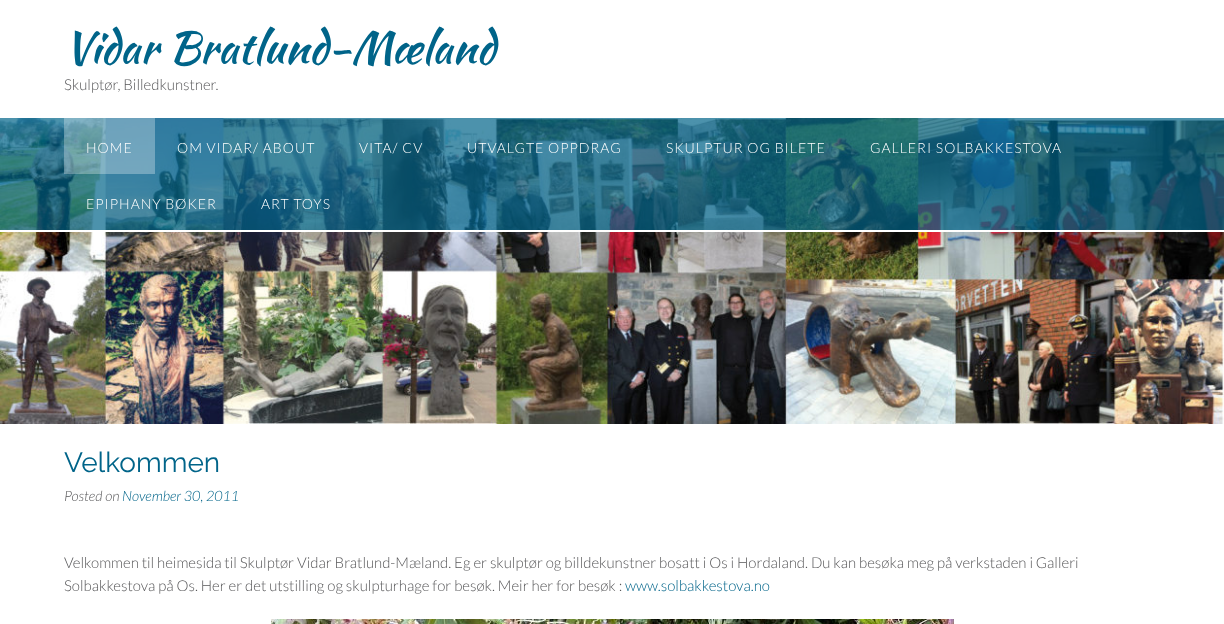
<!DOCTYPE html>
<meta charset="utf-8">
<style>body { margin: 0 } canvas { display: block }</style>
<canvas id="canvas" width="1224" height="624"></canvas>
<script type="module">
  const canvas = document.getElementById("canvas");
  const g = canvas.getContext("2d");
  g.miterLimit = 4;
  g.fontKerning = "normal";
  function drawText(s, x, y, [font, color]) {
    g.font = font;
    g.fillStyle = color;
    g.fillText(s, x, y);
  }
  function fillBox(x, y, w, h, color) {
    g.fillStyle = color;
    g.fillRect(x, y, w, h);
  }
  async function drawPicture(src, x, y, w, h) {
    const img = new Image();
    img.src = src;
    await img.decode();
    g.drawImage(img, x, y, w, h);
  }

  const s1 = ["44px Kaushan Script", "#006489"];
  const s2 = ["300 15px Lato", "#58585A"];
  const s3 = ["300 14px Lato", "#FFFFFF"];
  const s4 = ["28px Raleway", "#006489"];
  const s5 = ["italic 300 14.25px Lato", "#58585A"];
  const s6 = ["italic 300 14.25px Lato", "#006489"];
  const s7 = ["300 15px Lato", "#006489"];

  fillBox(0, 0, 1224, 624, "#FFFFFF");
  drawText("Vidar Bratlund-Mæland", 64, 63, s1);
  drawText("Skulptør, Billedkunstner.", 64, 90, s2);
  await drawPicture("pic1.png", 0, 118, 1224, 306);
  fillBox(0, 118, 1224, 112, "rgba(0, 100, 137, 0.7)");
  fillBox(0, 230, 1224, 2, "#FFFFFF");
  fillBox(64, 118, 91, 56, "rgba(255, 255, 255, 0.3)");
  g.letterSpacing = "1px";
  drawText("HOME", 86, 153, s3);
  drawText("OM VIDAR/ ABOUT", 177, 153, s3);
  drawText("VITA/ CV", 359, 153, s3);
  drawText("UTVALGTE OPPDRAG", 467, 153, s3);
  drawText("SKULPTUR OG BILETE", 666, 153, s3);
  drawText("GALLERI SOLBAKKESTOVA", 870, 153, s3);
  drawText("EPIPHANY BØKER", 86, 209, s3);
  drawText("ART TOYS", 261, 209, s3);
  g.letterSpacing = "0px";
  drawText("Velkommen", 64, 472, s4);
  drawText("Posted on", 64, 501, s5);
  drawText("November 30, 2011", 122, 501, s6);
  drawText("Velkommen til heimesida til Skulptør Vidar Bratlund-Mæland. Eg er skulptør og billdekunstner bosatt i Os i Hordaland. Du kan besøka meg på verkstaden i Galleri", 64, 568, s2);
  drawText("Solbakkestova på Os. Her er det utstilling og skulpturhage for besøk. Meir her for besøk :", 64, 591, s2);
  drawText("www.solbakkestova.no", 625, 591, s7);
  await drawPicture("pic2.png", 271, 619, 683, 5);
</script>
